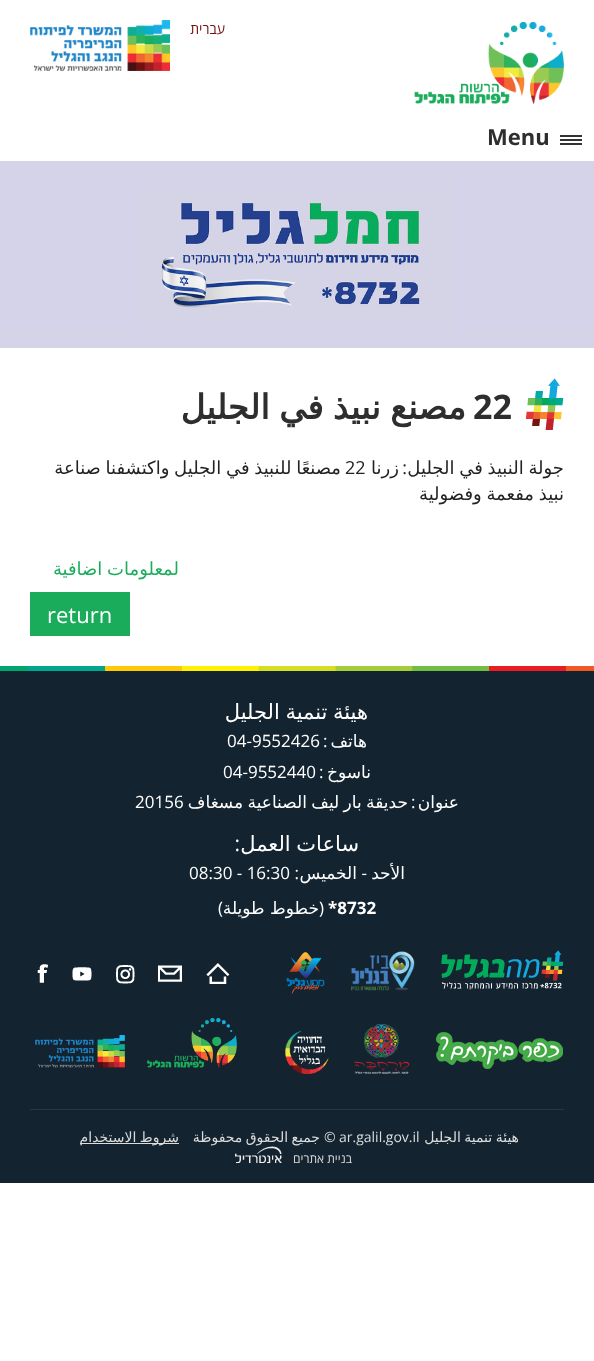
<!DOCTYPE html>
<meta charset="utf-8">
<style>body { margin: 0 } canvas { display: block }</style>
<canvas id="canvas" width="594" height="1361"></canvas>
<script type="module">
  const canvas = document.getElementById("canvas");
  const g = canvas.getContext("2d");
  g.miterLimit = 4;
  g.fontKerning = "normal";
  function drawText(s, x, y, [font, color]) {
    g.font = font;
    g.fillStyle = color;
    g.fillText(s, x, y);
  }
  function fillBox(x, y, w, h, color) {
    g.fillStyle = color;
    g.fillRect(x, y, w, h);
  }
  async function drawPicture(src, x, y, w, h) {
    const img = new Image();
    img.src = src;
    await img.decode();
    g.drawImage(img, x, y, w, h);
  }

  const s1 = ["14px Open Sans", "#741112"];
  const s2 = ["bold 22px Open Sans", "#2E2E2E"];
  const s3 = ["bold 34px Open Sans", "#2E2E2E"];
  const s4 = ["bold 34px DejaVu Sans", "#2E2E2E"];
  const s5 = ["18px DejaVu Sans", "#222222"];
  const s6 = ["18px Open Sans", "#222222"];
  const s7 = ["18px DejaVu Sans", "#1AAC5B"];
  const s8 = ["22px Open Sans", "#FFFFFF"];
  const s9 = ["21px DejaVu Sans", "#FFFFFF"];
  const s10 = ["17px DejaVu Sans", "#FFFFFF"];
  const s11 = ["17px Open Sans", "#FFFFFF"];
  const s12 = ["21px Open Sans", "#FFFFFF"];
  const s13 = ["bold 17px Open Sans", "#FFFFFF"];
  const s14 = ["14px DejaVu Sans", "#DCDCDC"];
  const s15 = ["14px Open Sans", "#DCDCDC"];
  const s16 = ["12px Open Sans", "#DCDCDC"];

  fillBox(0, 0, 594, 1361, "#FFFFFF");
  await drawPicture("pic1.png", 414, 22, 150, 82);
  g.direction = "rtl";
  drawText("עברית", 225, 34, s1);
  await drawPicture("pic2.png", 30, 20, 140, 51);
  fillBox(560, 135, 22, 2, "#333333");
  fillBox(560, 139, 22, 2, "#333333");
  fillBox(560, 143, 22, 2, "#333333");
  g.direction = "ltr";
  drawText("Menu", 487, 145, s2);
  await drawPicture("pic3.png", 0, 161, 594, 187);
  await drawPicture("pic4.png", 526, 378, 38, 52);
  drawText("22", 473, 419, s3);
  g.wordSpacing = "-1.5px";
  g.direction = "rtl";
  drawText("مصنع نبيذ في الجليل", 466, 419, s4);
  g.wordSpacing = "-1px";
  drawText("جولة النبيذ في الجليل", 564, 474, s5);
  g.wordSpacing = "0px";
  drawText(":", 407, 474, s6);
  drawText("زرنا", 399, 474, s5);
  g.direction = "ltr";
  drawText("22", 345, 474, s6);
  g.wordSpacing = "-1px";
  g.direction = "rtl";
  drawText("مصنعًا للنبيذ في الجليل واكتشفنا صناعة", 341, 474, s5);
  drawText("نبيذ مفعمة وفضولية", 564, 500, s5);
  drawText("لمعلومات اضافية", 179, 575, s7);
  fillBox(30, 592, 100, 44, "#1AAC5B");
  g.wordSpacing = "0px";
  g.direction = "ltr";
  drawText("return", 47, 623, s8);
  fillBox(0, 671, 594, 512, "#13232F");
  await drawPicture("pic5.png", 0, 666, 594, 5);
  fillBox(30, 1109, 534, 1, "#2D3545");
  g.wordSpacing = "-1px";
  g.direction = "rtl";
  drawText("هيئة تنمية الجليل", 368, 719, s9);
  g.wordSpacing = "0px";
  drawText("هاتف", 367, 747, s10);
  g.direction = "ltr";
  drawText(":", 323, 747, s11);
  drawText("04-9552426", 227, 747, s11);
  g.direction = "rtl";
  drawText("ناسوخ", 371, 778, s10);
  g.direction = "ltr";
  drawText(":", 319, 778, s11);
  drawText("04-9552440", 223, 778, s11);
  g.direction = "rtl";
  drawText("عنوان", 459, 808, s10);
  g.direction = "ltr";
  drawText(":", 411, 808, s11);
  g.wordSpacing = "-1px";
  g.direction = "rtl";
  drawText("حديقة بار ليف الصناعية مسغاف", 408, 808, s10);
  g.wordSpacing = "0px";
  g.direction = "ltr";
  drawText("20156", 135, 808, s11);
  g.wordSpacing = "-1px";
  g.direction = "rtl";
  drawText("ساعات العمل", 359, 851, s9);
  g.wordSpacing = "0px";
  drawText(":", 240, 851, s12);
  drawText("الأحد", 405, 879, s10);
  drawText("-", 367, 879, s11);
  drawText("الخميس", 357, 879, s10);
  drawText(":", 299, 879, s11);
  g.direction = "ltr";
  drawText("08:30 - 16:30", 189, 879, s11);
  drawText("*8732", 328, 914, s13);
  g.direction = "rtl";
  drawText("(", 324, 914, s11);
  drawText("خطوط طويلة", 319, 914, s10);
  drawText(")", 223, 914, s11);
  await drawPicture("pic6.png", 441, 950, 123, 41);
  await drawPicture("pic7.png", 351, 951, 64, 40);
  await drawPicture("pic8.png", 286, 952, 39, 42);
  await drawPicture("pic9.png", 436, 1032, 127, 37);
  await drawPicture("pic10.png", 354, 1024, 56, 50);
  await drawPicture("pic11.png", 285, 1030, 44, 44);
  await drawPicture("pic12.png", 206, 963, 24, 21);
  await drawPicture("pic13.png", 158, 965, 24, 17);
  await drawPicture("pic14.png", 116, 965, 19, 19);
  await drawPicture("pic15.png", 72, 967, 20, 14);
  await drawPicture("pic16.png", 37, 964, 11, 19);
  await drawPicture("pic17.png", 147, 1018, 90, 50);
  await drawPicture("pic18.png", 35, 1035, 90, 33);
  g.wordSpacing = "-1px";
  drawText("هيئة تنمية الجليل", 519, 1142, s14);
  g.wordSpacing = "0px";
  g.direction = "ltr";
  drawText("ar.galil.gov.il", 339, 1142, s15);
  drawText("©", 324, 1142, s15);
  g.wordSpacing = "-1px";
  g.direction = "rtl";
  drawText("جميع الحقوق محفوظة", 320, 1142, s14);
  fillBox(80, 1143, 99, 1, "#DCDCDC");
  drawText("شروط الاستخدام", 179, 1142, s14);
  g.wordSpacing = "0px";
  drawText("בניית אתרים", 352, 1163, s16);
  await drawPicture("pic19.png", 235, 1146, 47, 17);
</script>
